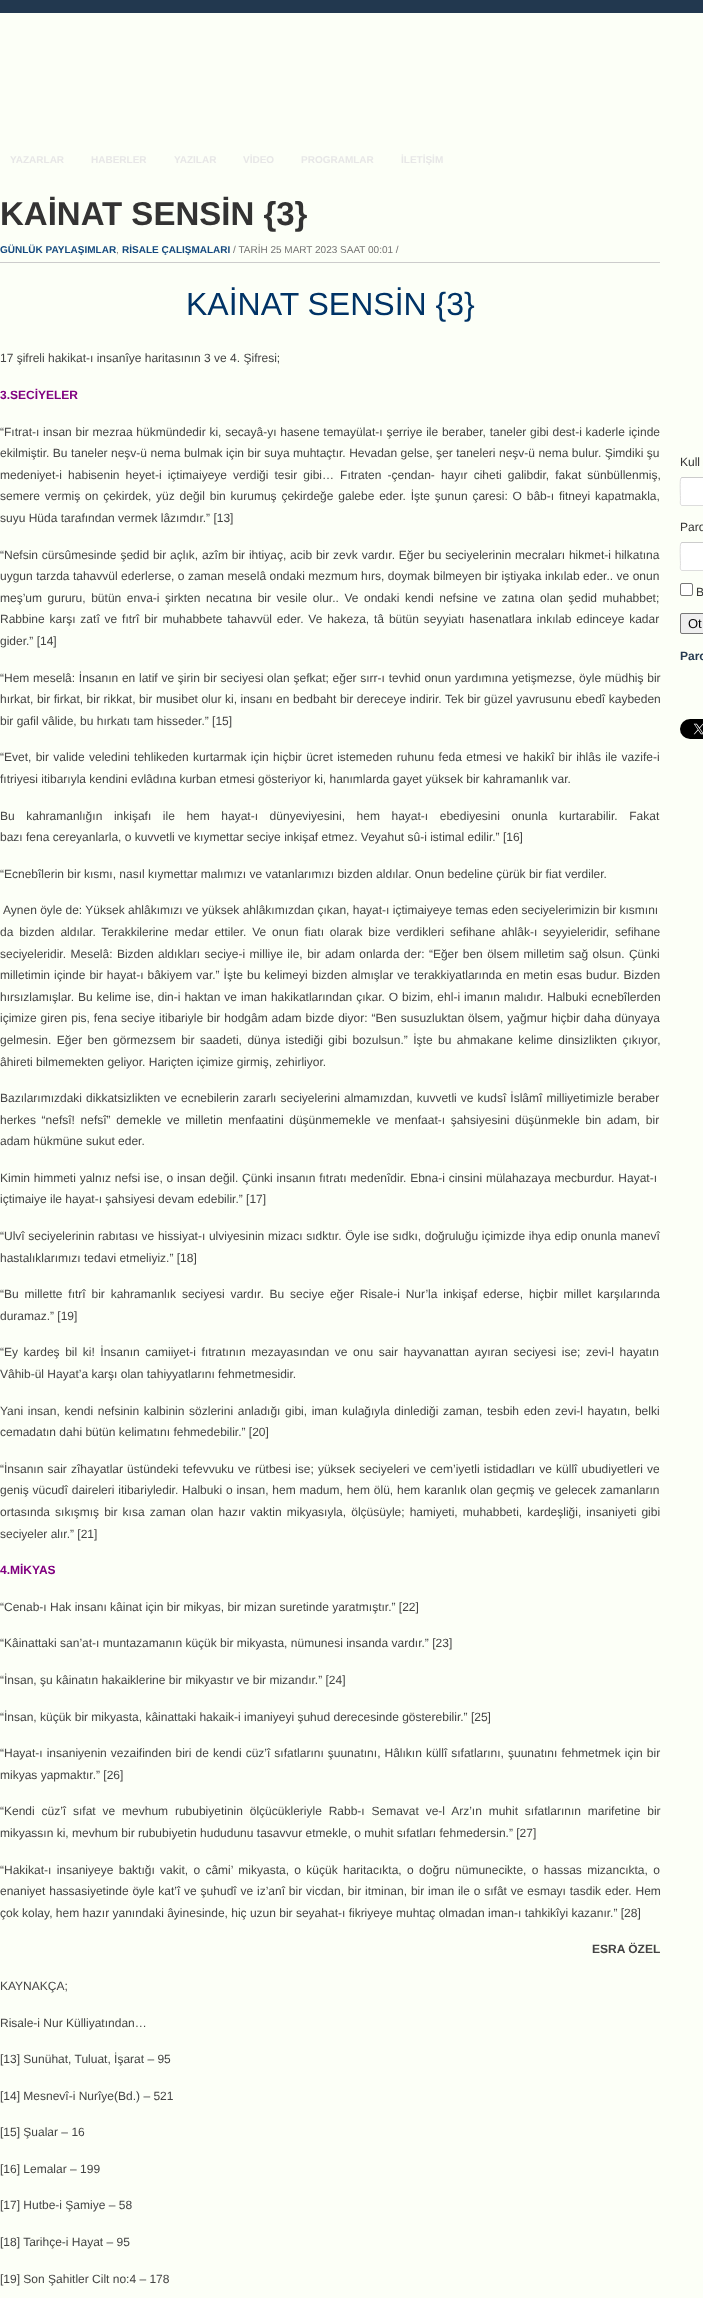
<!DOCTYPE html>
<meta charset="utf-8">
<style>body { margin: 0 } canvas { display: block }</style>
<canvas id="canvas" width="703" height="2298"></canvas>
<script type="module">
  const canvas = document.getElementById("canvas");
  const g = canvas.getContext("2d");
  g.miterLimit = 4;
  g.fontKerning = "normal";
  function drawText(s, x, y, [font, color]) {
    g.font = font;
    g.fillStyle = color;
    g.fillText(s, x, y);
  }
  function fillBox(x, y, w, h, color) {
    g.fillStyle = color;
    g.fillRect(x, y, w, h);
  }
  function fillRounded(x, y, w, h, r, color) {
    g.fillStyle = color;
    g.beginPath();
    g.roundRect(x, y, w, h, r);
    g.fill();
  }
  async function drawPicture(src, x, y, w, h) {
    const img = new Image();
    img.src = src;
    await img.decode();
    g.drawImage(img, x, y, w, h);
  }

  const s1 = ["bold 10px Liberation Sans", "#E7E7E7"];
  const s2 = ["bold 33px Liberation Sans", "#333333"];
  const s3 = ["bold 10px Liberation Sans", "#154A7F"];
  const s4 = ["10px Liberation Sans", "#737373"];
  const s5 = ["32px Liberation Sans", "#003366"];
  const s6 = ["12px Liberation Sans", "#444444"];
  const s7 = ["bold 12px Liberation Sans", "#800080"];
  const s8 = ["bold 12px Liberation Sans", "#444444"];
  const s9 = ["12px Liberation Sans", "#333333"];
  const s10 = ["13px Liberation Sans", "#000000"];
  const s11 = ["bold 12px Liberation Sans", "#263B51"];

  fillBox(0, 0, 703, 2298, "#FCFFF7");
  fillBox(0, 0, 703, 13, "#22384F");
  drawText("YAZARLAR", 10, 163, s1);
  drawText("HABERLER", 91, 163, s1);
  drawText("YAZILAR", 174, 163, s1);
  drawText("VİDEO", 243, 163, s1);
  drawText("PROGRAMLAR", 301, 163, s1);
  drawText("İLETİŞİM", 401, 163, s1);
  drawText("KAİNAT SENSİN {3}", 0, 225, s2);
  fillBox(0, 262, 660, 1, "#CCCCCC");
  drawText("GÜNLÜK PAYLAŞIMLAR", 0, 253, s3);
  drawText(",", 116, 253, s4);
  drawText("RİSALE ÇALIŞMALARI", 122, 253, s3);
  drawText("/ TARİH 25 MART 2023 SAAT 00:01 /", 233, 253, s4);
  drawText("KAİNAT SENSİN {3}", 186, 315, s5);
  drawText("17 şifreli hakikat-ı insanîye haritasının 3 ve 4. Şifresi;", 0, 362, s6);
  drawText("3.SECİYELER", 0, 399, s7);
  g.wordSpacing = "0.4px";
  drawText("“Fıtrat-ı insan bir mezraa hükmündedir ki, secayâ-yı hasene temayülat-ı şerriye ile beraber, taneler gibi dest-i kaderle içinde", 0, 436, s6);
  g.wordSpacing = "0.1px";
  drawText("ekilmiştir. Bu taneler neşv-ü nema bulmak için bir suya muhtaçtır. Hevadan gelse, şer taneleri neşv-ü nema bulur. Şimdiki şu", 0, 457, s6);
  g.wordSpacing = "2.75px";
  drawText("medeniyet-i habisenin heyet-i içtimaiyeye verdiği tesir gibi… Fıtraten -çendan- hayır ciheti galibdir, fakat sünbüllenmiş,", 0, 479, s6);
  g.wordSpacing = "1.5px";
  drawText("semere vermiş on çekirdek, yüz değil bin kurumuş çekirdeğe galebe eder. İşte şunun çaresi: O bâb-ı fitneyi kapatmakla,", 0, 500, s6);
  g.wordSpacing = "0px";
  drawText("suyu Hüda tarafından vermek lâzımdır.” [13]", 0, 522, s6);
  g.wordSpacing = "0.5px";
  drawText("“Nefsin cürsûmesinde şedid bir açlık, azîm bir ihtiyaç, acib bir zevk vardır. Eğer bu seciyelerinin mecraları hikmet-i hilkatına", 0, 559, s6);
  g.wordSpacing = "0.1px";
  drawText("uygun tarzda tahavvül ederlerse, o zaman meselâ ondaki mezmum hırs, doymak bilmeyen bir iştiyaka inkılab eder.. ve onun", 0, 580, s6);
  g.wordSpacing = "2.25px";
  drawText("meş’um gururu, bütün enva-i şirkten necatına bir vesile olur.. Ve ondaki kendi nefsine ve zatına olan şedid muhabbet;", 0, 602, s6);
  g.wordSpacing = "1.5px";
  drawText("Rabbine karşı zatî ve fıtrî bir muhabbete tahavvül eder. Ve hakeza, tâ bütün seyyiatı hasenatlara inkılab edinceye kadar", 0, 623, s6);
  g.wordSpacing = "0px";
  drawText("gider.” [14]", 0, 645, s6);
  g.wordSpacing = "0.4px";
  drawText("“Hem meselâ: İnsanın en latif ve şirin bir seciyesi olan şefkat; eğer sırr-ı tevhid onun yardımına yetişmezse, öyle müdhiş bir", 0, 682, s6);
  g.wordSpacing = "0.2px";
  drawText("hırkat, bir firkat, bir rikkat, bir musibet olur ki, insanı en bedbaht bir dereceye indirir. Tek bir güzel yavrusunu ebedî kaybeden", 0, 703, s6);
  g.wordSpacing = "0px";
  drawText("bir gafil vâlide, bu hırkatı tam hisseder.” [15]", 0, 725, s6);
  g.wordSpacing = "1px";
  drawText("“Evet, bir valide veledini tehlikeden kurtarmak için hiçbir ücret istemeden ruhunu feda etmesi ve hakikî bir ihlâs ile vazife-i", 0, 761, s6);
  g.wordSpacing = "0px";
  drawText("fıtriyesi itibarıyla kendini evlâdına kurban etmesi gösteriyor ki, hanımlarda gayet yüksek bir kahramanlık var.", 0, 783, s6);
  g.wordSpacing = "8.25px";
  drawText("Bu kahramanlığın inkişafı ile hem hayat-ı dünyeviyesini, hem hayat-ı ebediyesini onunla kurtarabilir. Fakat", 0, 820, s6);
  g.wordSpacing = "0px";
  drawText("bazı fena cereyanlarla, o kuvvetli ve kıymettar seciye inkişaf etmez. Veyahut sû-i istimal edilir.” [16]", 0, 841, s6);
  drawText("“Ecnebîlerin bir kısmı, nasıl kıymettar malımızı ve vatanlarımızı bizden aldılar. Onun bedeline çürük bir fiat verdiler.", 0, 878, s6);
  drawText("Aynen öyle de: Yüksek ahlâkımızı ve yüksek ahlâkımızdan çıkan, hayat-ı içtimaiyeye temas eden seciyelerimizin bir kısmını", 3, 914, s6);
  g.wordSpacing = "2.5px";
  drawText("da bizden aldılar. Terakkilerine medar ettiler. Ve onun fiatı olarak bize verdikleri sefihane ahlâk-ı seyyieleridir, sefihane", 0, 936, s6);
  g.wordSpacing = "1.1px";
  drawText("seciyeleridir. Meselâ: Bizden aldıkları seciye-i milliye ile, bir adam onlarda der: “Eğer ben ölsem milletim sağ olsun. Çünki", 0, 958, s6);
  g.wordSpacing = "0.7px";
  drawText("milletimin içinde bir hayat-ı bâkiyem var.” İşte bu kelimeyi bizden almışlar ve terakkiyatlarında en metin esas budur. Bizden", 0, 979, s6);
  g.wordSpacing = "0.6px";
  drawText("hırsızlamışlar. Bu kelime ise, din-i haktan ve iman hakikatlarından çıkar. O bizim, ehl-i imanın malıdır. Halbuki ecnebîlerden", 0, 1001, s6);
  drawText("içimize giren pis, fena seciye itibariyle bir hodgâm adam bizde diyor: “Ben susuzluktan ölsem, yağmur hiçbir daha dünyaya", 0, 1022, s6);
  g.wordSpacing = "2.1px";
  drawText("gelmesin. Eğer ben görmezsem bir saadeti, dünya istediği gibi bozulsun.” İşte bu ahmakane kelime dinsizlikten çıkıyor,", 0, 1044, s6);
  g.wordSpacing = "0px";
  drawText("âhireti bilmemekten geliyor. Hariçten içimize girmiş, zehirliyor.", 0, 1066, s6);
  g.wordSpacing = "0.75px";
  drawText("Bazılarımızdaki dikkatsizlikten ve ecnebilerin zararlı seciyelerini almamızdan, kuvvetli ve kudsî İslâmî milliyetimizle beraber", 0, 1102, s6);
  g.wordSpacing = "2.25px";
  drawText("herkes “nefsî! nefsî” demekle ve milletin menfaatini düşünmemekle ve menfaat-ı şahsiyesini düşünmekle bin adam, bir", 0, 1124, s6);
  g.wordSpacing = "0px";
  drawText("adam hükmüne sukut eder.", 0, 1145, s6);
  g.wordSpacing = "0.5px";
  drawText("Kimin himmeti yalnız nefsi ise, o insan değil. Çünki insanın fıtratı medenîdir. Ebna-i cinsini mülahazaya mecburdur. Hayat-ı", 0, 1182, s6);
  g.wordSpacing = "0px";
  drawText("içtimaiye ile hayat-ı şahsiyesi devam edebilir.” [17]", 0, 1203, s6);
  g.wordSpacing = "0.3px";
  drawText("“Ulvî seciyelerinin rabıtası ve hissiyat-ı ulviyesinin mizacı sıdktır. Öyle ise sıdkı, doğruluğu içimizde ihya edip onunla manevî", 0, 1240, s6);
  g.wordSpacing = "0px";
  drawText("hastalıklarımızı tedavi etmeliyiz.” [18]", 0, 1262, s6);
  g.wordSpacing = "2.5px";
  drawText("“Bu millette fıtrî bir kahramanlık seciyesi vardır. Bu seciye eğer Risale-i Nur’la inkişaf ederse, hiçbir millet karşılarında", 0, 1298, s6);
  g.wordSpacing = "0px";
  drawText("duramaz.” [19]", 0, 1320, s6);
  g.wordSpacing = "2.25px";
  drawText("“Ey kardeş bil ki! İnsanın camiiyet-i fıtratının mezayasından ve onu sair hayvanattan ayıran seciyesi ise; zevi-l hayatın", 0, 1356, s6);
  g.wordSpacing = "0px";
  drawText("Vâhib-ül Hayat’a karşı olan tahiyyatlarını fehmetmesidir.", 0, 1378, s6);
  g.wordSpacing = "1.3px";
  drawText("Yani insan, kendi nefsinin kalbinin sözlerini anladığı gibi, iman kulağıyla dinlediği zaman, tesbih eden zevi-l hayatın, belki", 0, 1415, s6);
  g.wordSpacing = "0px";
  drawText("cemadatın dahi bütün kelimatını fehmedebilir.” [20]", 0, 1436, s6);
  g.wordSpacing = "0.8px";
  drawText("“İnsanın sair zîhayatlar üstündeki tefevvuku ve rütbesi ise; yüksek seciyeleri ve cem’iyetli istidadları ve küllî ubudiyetleri ve", 0, 1473, s6);
  g.wordSpacing = "0.5px";
  drawText("geniş vücudî daireleri itibariyledir. Halbuki o insan, hem madum, hem ölü, hem karanlık olan geçmiş ve gelecek zamanların", 0, 1494, s6);
  g.wordSpacing = "1.75px";
  drawText("ortasında sıkışmış bir kısa zaman olan hazır vaktin mikyasıyla, ölçüsüyle; hamiyeti, muhabbeti, kardeşliği, insaniyeti gibi", 0, 1516, s6);
  g.wordSpacing = "0px";
  drawText("seciyeler alır.” [21]", 0, 1538, s6);
  drawText("4.MİKYAS", 0, 1574, s7);
  drawText("“Cenab-ı Hak insanı kâinat için bir mikyas, bir mizan suretinde yaratmıştır.” [22]", 0, 1611, s6);
  drawText("“Kâinattaki san’at-ı muntazamanın küçük bir mikyasta, nümunesi insanda vardır.” [23]", 0, 1647, s6);
  drawText("“İnsan, şu kâinatın hakaiklerine bir mikyastır ve bir mizandır.” [24]", 0, 1684, s6);
  drawText("“İnsan, küçük bir mikyasta, kâinattaki hakaik-i imaniyeyi şuhud derecesinde gösterebilir.” [25]", 0, 1721, s6);
  g.wordSpacing = "0.7px";
  drawText("“Hayat-ı insaniyenin vezaifinden biri de kendi cüz’î sıfatlarını şuunatını, Hâlıkın küllî sıfatlarını, şuunatını fehmetmek için bir", 0, 1757, s6);
  g.wordSpacing = "0px";
  drawText("mikyas yapmaktır.” [26]", 0, 1779, s6);
  g.wordSpacing = "3.5px";
  drawText("“Kendi cüz’î sıfat ve mevhum rububiyetinin ölçücükleriyle Rabb-ı Semavat ve-l Arz’ın muhit sıfatlarının marifetine bir", 0, 1815, s6);
  g.wordSpacing = "0px";
  drawText("mikyassın ki, mevhum bir rububiyetin hududunu tasavvur etmekle, o muhit sıfatları fehmedersin.” [27]", 0, 1837, s6);
  g.wordSpacing = "2px";
  drawText("“Hakikat-ı insaniyeye baktığı vakit, o câmi’ mikyasta, o küçük haritacıkta, o doğru nümunecikte, o hassas mizancıkta, o", 0, 1874, s6);
  g.wordSpacing = "0.5px";
  drawText("enaniyet hassasiyetinde öyle kat’î ve şuhudî ve iz’anî bir vicdan, bir itminan, bir iman ile o sıfât ve esmayı tasdik eder. Hem", 0, 1895, s6);
  g.wordSpacing = "0px";
  drawText("çok kolay, hem hazır yanındaki âyinesinde, hiç uzun bir seyahat-ı fikriyeye muhtaç olmadan iman-ı tahkikîyi kazanır.” [28]", 0, 1917, s6);
  drawText("ESRA ÖZEL", 592, 1953, s8);
  drawText("KAYNAKÇA;", 0, 1990, s6);
  drawText("Risale-i Nur Külliyatından…", 0, 2027, s6);
  drawText("[13] Sunühat, Tuluat, İşarat – 95", 0, 2063, s6);
  drawText("[14] Mesnevî-i Nurîye(Bd.) – 521", 0, 2100, s6);
  drawText("[15] Şualar – 16", 0, 2136, s6);
  drawText("[16] Lemalar – 199", 0, 2173, s6);
  drawText("[17] Hutbe-i Şamiye – 58", 0, 2209, s6);
  drawText("[18] Tarihçe-i Hayat – 95", 0, 2246, s6);
  drawText("[19] Son Şahitler Cilt no:4 – 178", 0, 2283, s6);
  drawText("Kull", 680, 466, s9);
  fillRounded(680, 477, 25, 29, 2, "#FFFFFF");
  g.beginPath();
  g.moveTo(681, 478);
  g.lineTo(682, 477.5);
  g.lineTo(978, 477.5);
  g.lineTo(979, 478);
  g.strokeStyle = "#CCCCCC";
  g.stroke();
  g.beginPath();
  g.moveTo(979, 478);
  g.bezierCurveTo(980.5, 479, 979.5, 497, 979.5, 500);
  g.bezierCurveTo(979.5, 500.5, 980.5, 505.5, 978, 505.5);
  g.lineTo(682, 505.5);
  g.bezierCurveTo(679.5, 505.5, 680.5, 500.5, 680.5, 500);
  g.bezierCurveTo(680.5, 497, 679.5, 479, 681, 478);
  g.strokeStyle = "#DDDDDD";
  g.stroke();
  drawText("Paro", 680, 531, s9);
  fillRounded(680, 542, 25, 29, 2, "#FFFFFF");
  g.beginPath();
  g.moveTo(681, 543);
  g.lineTo(682, 542.5);
  g.lineTo(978, 542.5);
  g.lineTo(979, 543);
  g.strokeStyle = "#CCCCCC";
  g.stroke();
  g.beginPath();
  g.moveTo(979, 543);
  g.bezierCurveTo(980.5, 544, 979.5, 562, 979.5, 565);
  g.bezierCurveTo(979.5, 565.5, 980.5, 570.5, 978, 570.5);
  g.lineTo(682, 570.5);
  g.bezierCurveTo(679.5, 570.5, 680.5, 565.5, 680.5, 565);
  g.bezierCurveTo(680.5, 562, 679.5, 544, 681, 543);
  g.strokeStyle = "#DDDDDD";
  g.stroke();
  g.beginPath();
  g.roundRect(680.5, 583.5, 12, 12, 1.5);
  g.fill();
  g.strokeStyle = "#767676";
  g.stroke();
  drawText("B", 696, 596, s9);
  g.fillStyle = "#EFEFEF";
  g.beginPath();
  g.roundRect(680.5, 613.5, 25, 20, 1.5);
  g.fill();
  g.stroke();
  drawText("Ot", 688, 628, s10);
  drawText("Paro", 680, 660, s11);
  await drawPicture("pic1.png", 680, 719, 23, 20);
</script>
